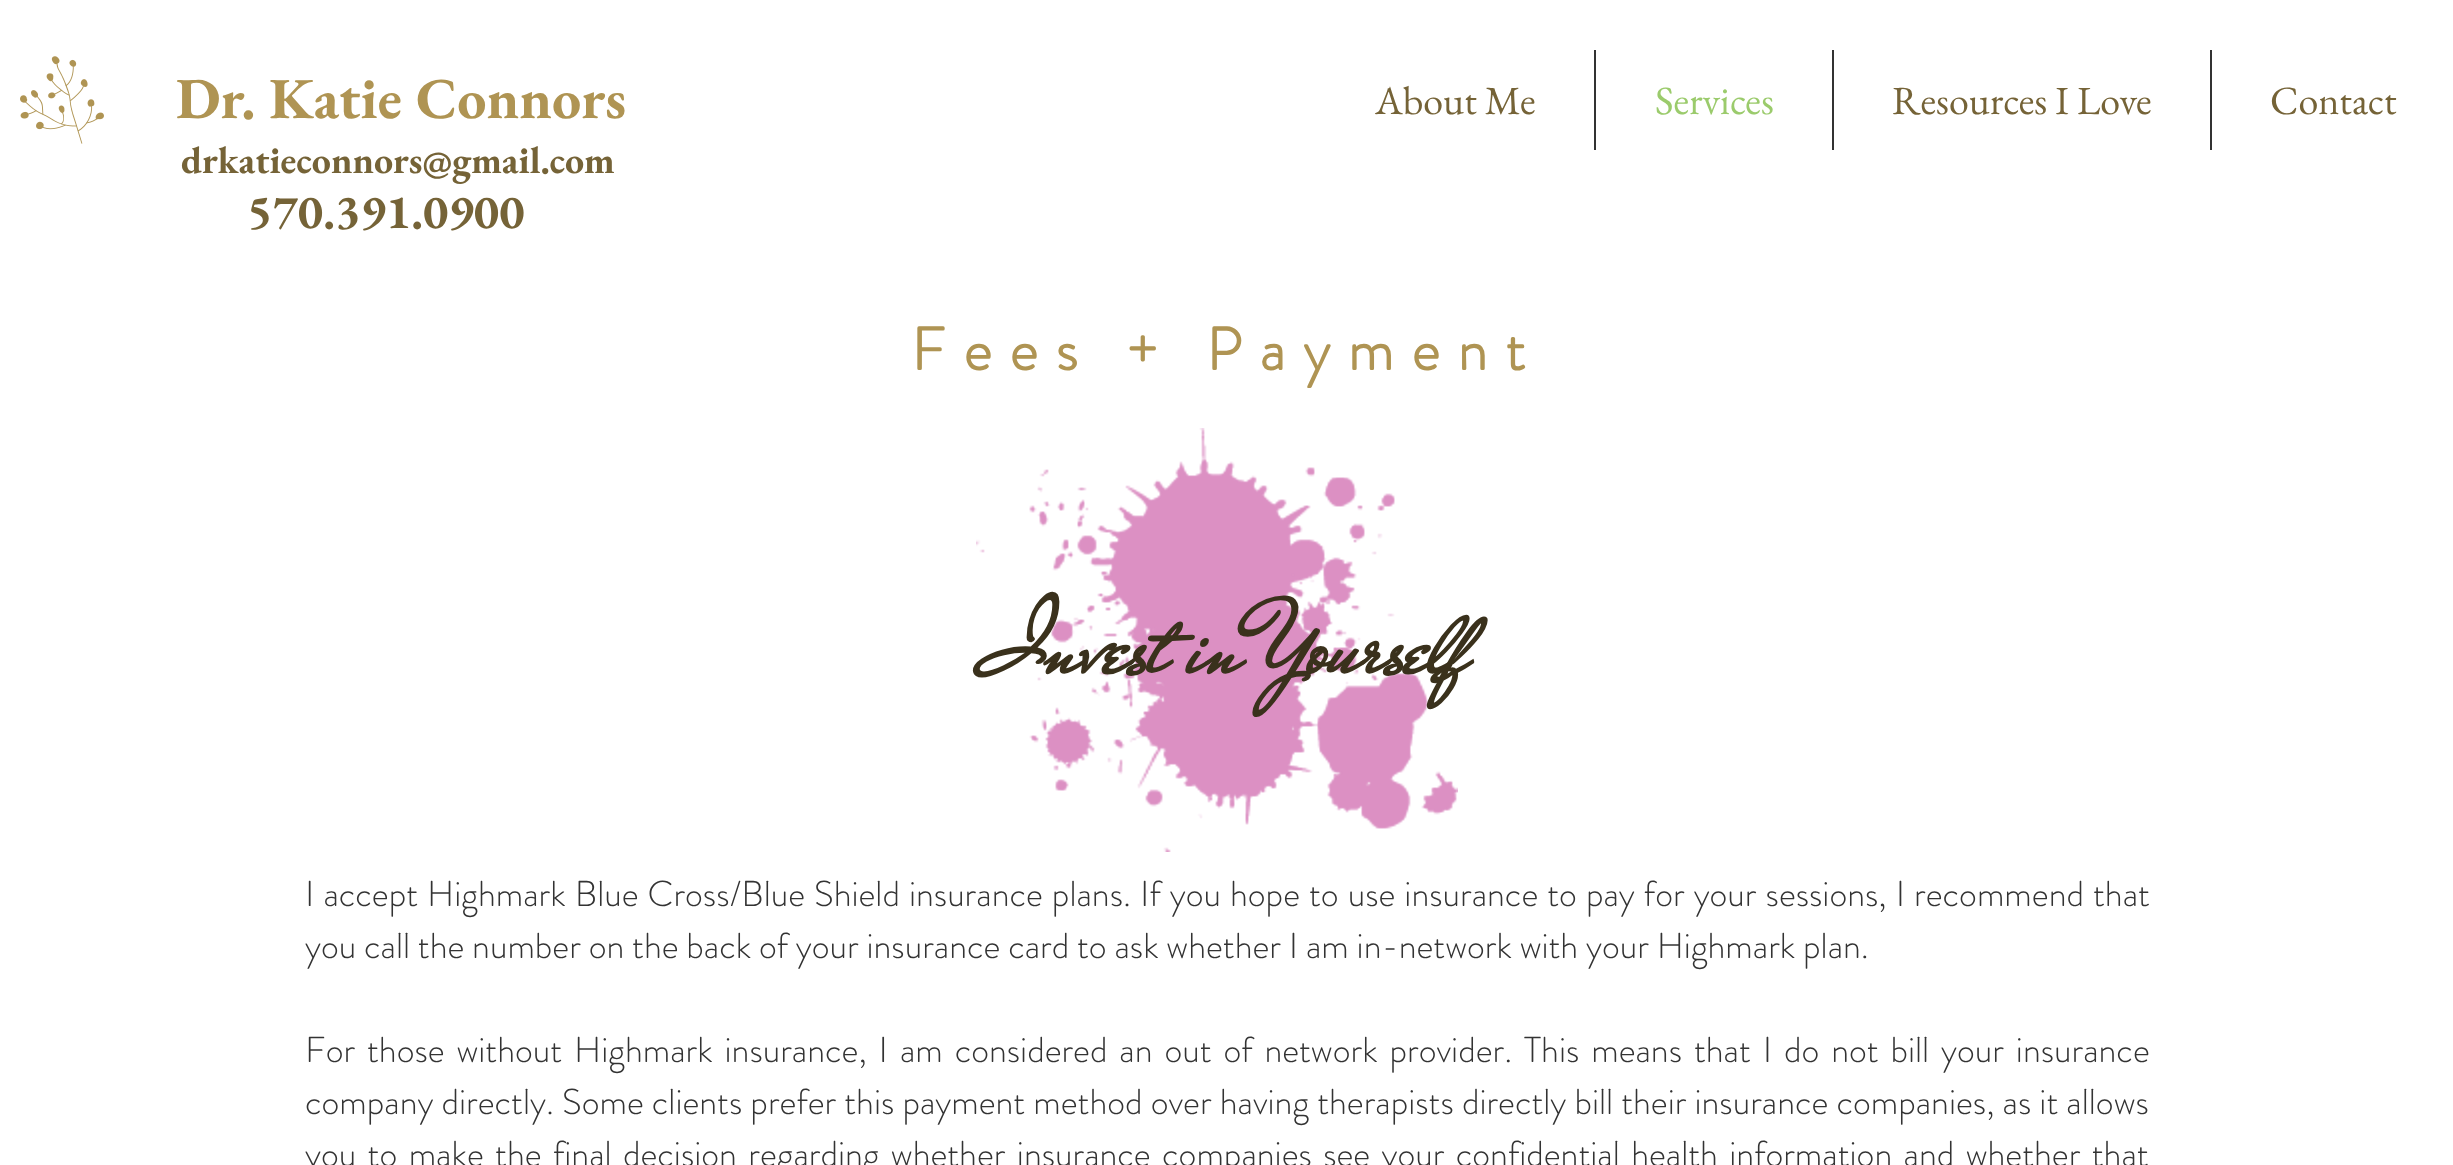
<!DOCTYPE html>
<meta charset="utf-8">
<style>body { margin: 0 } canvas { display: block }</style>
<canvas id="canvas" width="2453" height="1165"></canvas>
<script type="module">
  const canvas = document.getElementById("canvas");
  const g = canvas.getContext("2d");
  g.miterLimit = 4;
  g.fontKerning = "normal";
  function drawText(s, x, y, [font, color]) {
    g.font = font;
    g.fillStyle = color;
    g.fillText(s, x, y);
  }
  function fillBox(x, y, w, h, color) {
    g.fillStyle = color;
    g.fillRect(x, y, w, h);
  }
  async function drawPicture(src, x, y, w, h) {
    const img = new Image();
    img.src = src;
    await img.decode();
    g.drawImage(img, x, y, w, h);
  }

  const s1 = ["bold 58px EB Garamond", "#AF9453"];
  const s2 = ["bold 38px EB Garamond", "#756337"];
  const s3 = ["bold 48px EB Garamond", "#756337"];
  const s4 = ["40px EB Garamond", "#756337"];
  const s5 = ["40px EB Garamond", "#9BCB6C"];
  const s6 = ["bold 60px 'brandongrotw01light'", "#AF9453"];
  const s7 = ["bold 102px Mr De Haviland", "#3A311C"];
  const s8 = ["300 36px 'brandongrotw01light'", "#333333"];

  fillBox(0, 0, 2453, 1165, "#FFFFFF");
  await drawPicture("pic1.png", 20, 56, 84, 88);
  drawText("Dr. Katie Connors", 176, 118, s1);
  drawText("drkatieconnors@gmail.com", 181, 173, s2);
  drawText("570.391.0900", 247, 228, s3);
  drawText("About Me", 1375, 114, s4);
  fillBox(1594, 50, 2, 100, "#333333");
  drawText("Services", 1655, 114, s5);
  fillBox(1832, 50, 2, 100, "#333333");
  drawText("Resources I Love", 1892, 114, s4);
  fillBox(2210, 50, 2, 100, "#333333");
  drawText("Contact", 2270, 114, s4);
  g.letterSpacing = "18px";
  drawText("Fees + Payment", 911, 370, s6);
  await drawPicture("pic2.png", 976, 428, 482, 424);
  g.letterSpacing = "0px";
  drawText("Invest in Yourself", 985, 672, s7);
  g.wordSpacing = "1.25px";
  drawText("I accept Highmark Blue Cross/Blue Shield insurance plans. If you hope to use insurance to pay for your sessions, I recommend that", 305, 906, s8);
  g.wordSpacing = "0px";
  drawText("you call the number on the back of your insurance card to ask whether I am in-network with your Highmark plan.", 305, 958, s8);
  g.wordSpacing = "4.1px";
  drawText("For those without Highmark insurance, I am considered an out of network provider. This means that I do not bill your insurance", 305, 1062, s8);
  g.wordSpacing = "0.3px";
  drawText("company directly. Some clients prefer this payment method over having therapists directly bill their insurance companies, as it allows", 305, 1114, s8);
  g.wordSpacing = "3.6px";
  drawText("you to make the final decision regarding whether insurance companies see your confidential health information and whether that", 305, 1166, s8);
</script>
